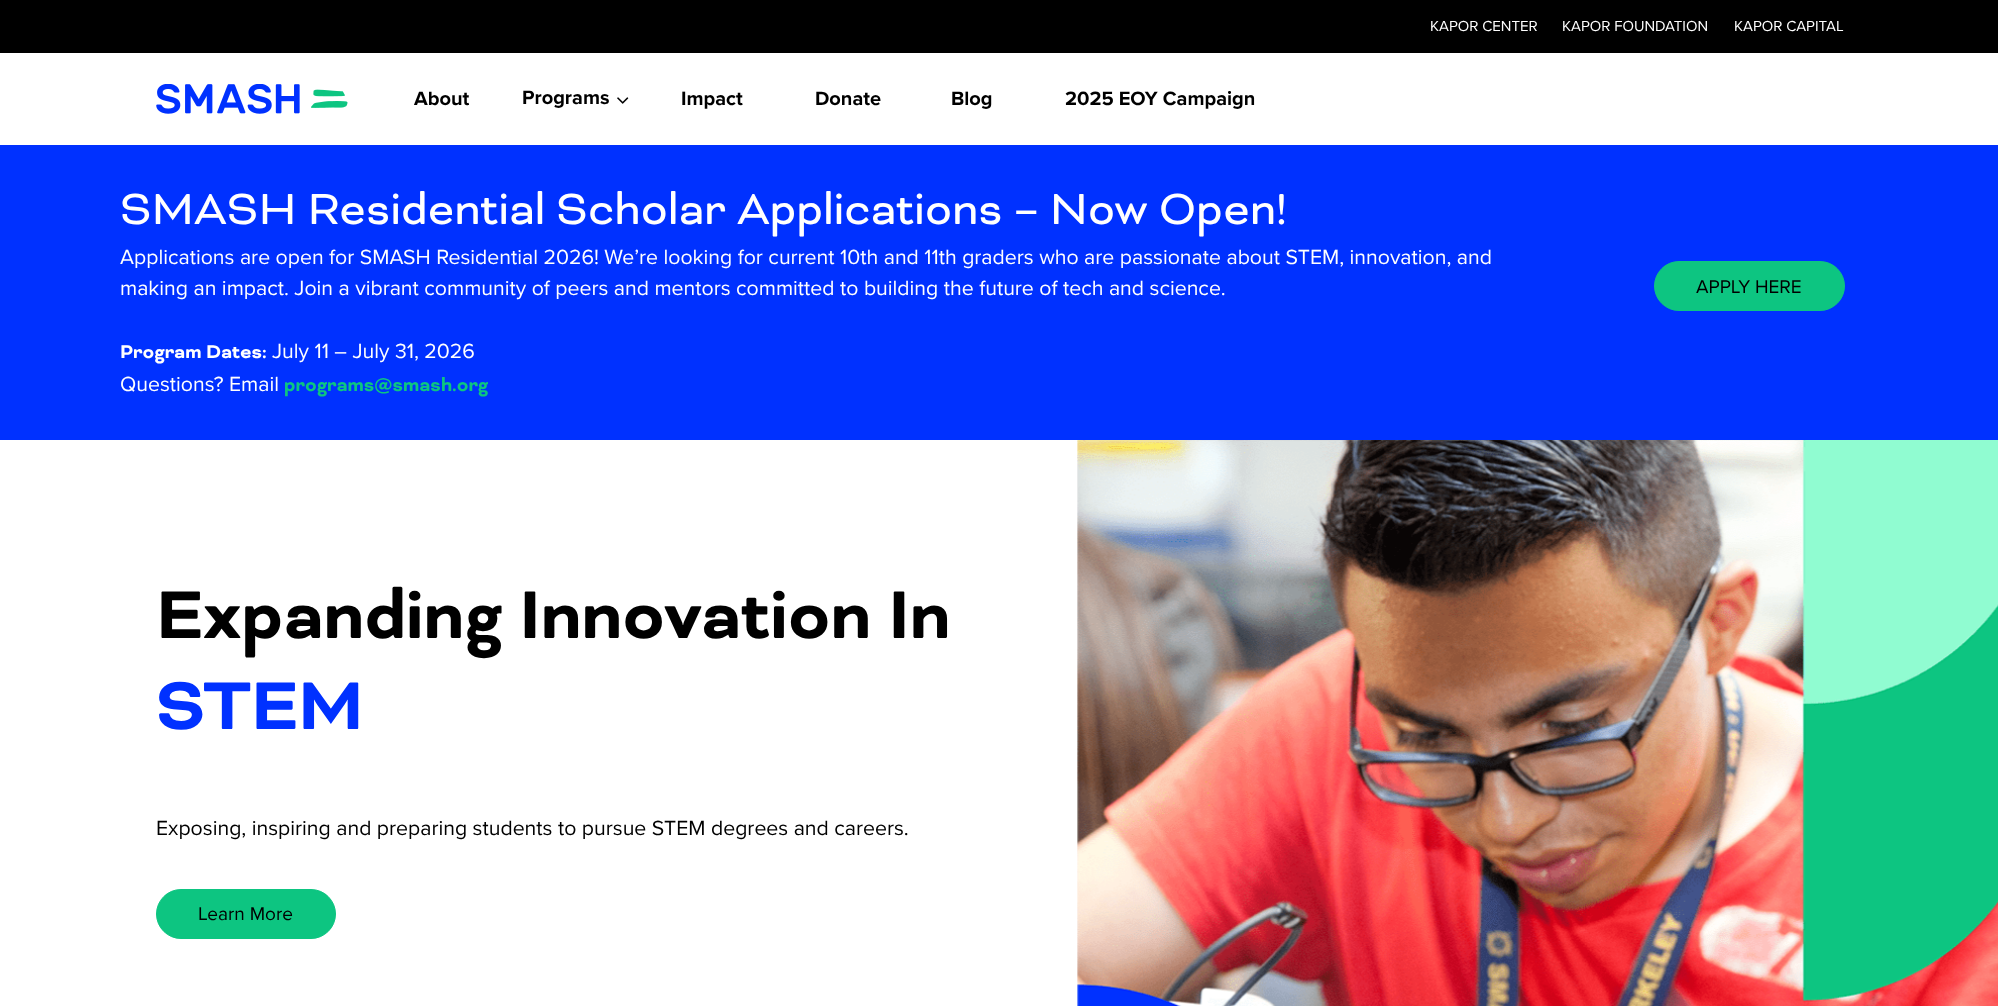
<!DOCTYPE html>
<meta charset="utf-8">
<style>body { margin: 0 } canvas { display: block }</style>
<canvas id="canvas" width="1998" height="1006"></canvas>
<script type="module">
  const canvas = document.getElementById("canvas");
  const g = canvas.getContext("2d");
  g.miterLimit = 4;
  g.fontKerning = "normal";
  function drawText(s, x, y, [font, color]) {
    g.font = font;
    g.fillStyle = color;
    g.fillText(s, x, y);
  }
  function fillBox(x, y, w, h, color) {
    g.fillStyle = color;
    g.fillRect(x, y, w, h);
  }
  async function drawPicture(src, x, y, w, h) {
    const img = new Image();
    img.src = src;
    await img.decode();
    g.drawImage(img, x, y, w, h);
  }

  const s1 = ["15px Proxima Nova", "#FFFFFF"];
  const s2 = ["bold 20px Proxima Nova", "#000000"];
  const s3 = ["50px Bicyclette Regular", "#FFFFFF"];
  const s4 = ["21.25px Proxima Nova", "#FFFFFF"];
  const s5 = ["bold 21.25px Bicyclette Regular", "#FFFFFF"];
  const s6 = ["bold 21.25px Bicyclette Regular", "#0DC581"];
  const s7 = ["19px Proxima Nova", "#000000"];
  const s8 = ["bold 77.5px Bicyclette Regular", "#000000"];
  const s9 = ["bold 77.5px Bicyclette Regular", "#0031FF"];
  const s10 = ["21.25px Proxima Nova", "#000000"];

  fillBox(0, 0, 1998, 1006, "#FFFFFF");
  fillBox(0, 0, 1998, 53, "#000000");
  drawText("KAPOR CENTER", 1430, 31, s1);
  drawText("KAPOR FOUNDATION", 1562, 31, s1);
  drawText("KAPOR CAPITAL", 1734, 31, s1);
  await drawPicture("pic1.png", 156, 84, 192, 30);
  drawText("About", 414, 105, s2);
  drawText("Programs", 522, 104, s2);
  await drawPicture("pic2.png", 617, 97, 12, 7);
  drawText("Impact", 681, 105, s2);
  drawText("Donate", 815, 105, s2);
  drawText("Blog", 951, 105, s2);
  drawText("2025 EOY Campaign", 1065, 105, s2);
  fillBox(0, 145, 1998, 295, "#0031FF");
  drawText("SMASH Residential Scholar Applications – Now Open!", 120, 224, s3);
  drawText("Applications are open for SMASH Residential 2026! We’re looking for current 10th and 11th graders who are passionate about STEM, innovation, and", 120, 264, s4);
  drawText("making an impact. Join a vibrant community of peers and mentors committed to building the future of tech and science.", 120, 295, s4);
  drawText("Program Dates:", 120, 358, s5);
  drawText("July 11 – July 31, 2026", 272, 358, s4);
  drawText("Questions? Email", 120, 391, s4);
  drawText("programs@smash.org", 284, 391, s6);
  g.beginPath();
  g.roundRect(1654.5, 261.5, 190, 49, 24.5);
  g.fill();
  g.strokeStyle = "#0DC581";
  g.stroke();
  drawText("APPLY HERE", 1696, 293, s7);
  drawText("Expanding Innovation In", 156, 638, s8);
  drawText("STEM", 156, 729, s9);
  drawText("Exposing, inspiring and preparing students to pursue STEM degrees and careers.", 156, 835, s10);
  g.fillStyle = "#0DC581";
  g.beginPath();
  g.roundRect(156.5, 889.5, 179, 49, 24.5);
  g.fill();
  g.stroke();
  drawText("Learn More", 198, 920, s7);
  await drawPicture("pic3.png", 1077, 440, 921, 566);
</script>
